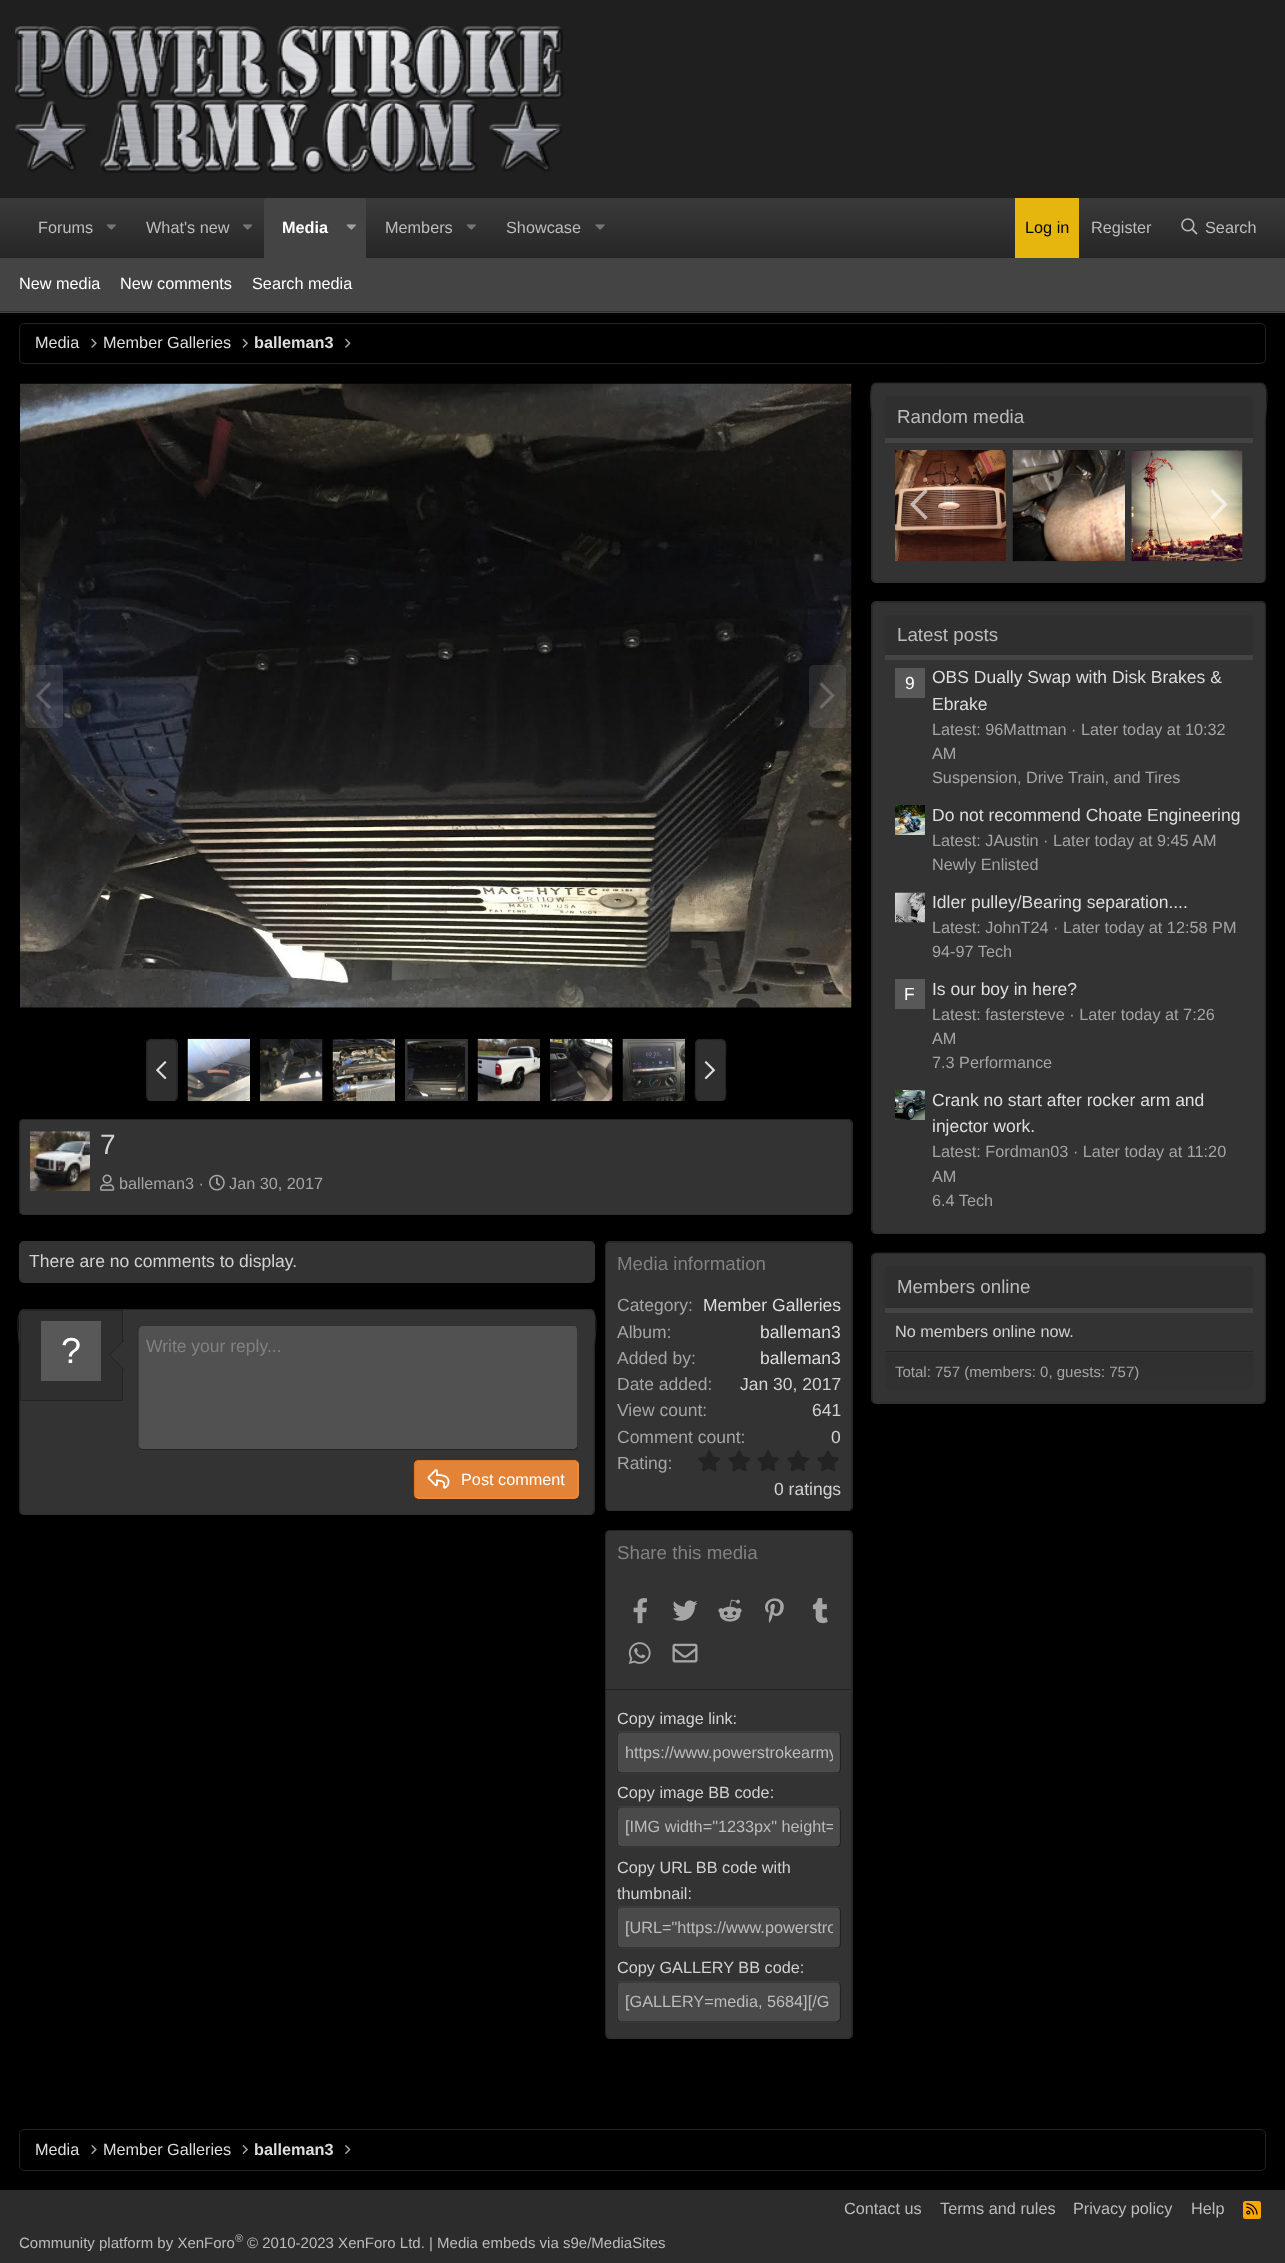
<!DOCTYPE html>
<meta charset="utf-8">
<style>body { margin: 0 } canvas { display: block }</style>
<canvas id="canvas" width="1285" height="2263"></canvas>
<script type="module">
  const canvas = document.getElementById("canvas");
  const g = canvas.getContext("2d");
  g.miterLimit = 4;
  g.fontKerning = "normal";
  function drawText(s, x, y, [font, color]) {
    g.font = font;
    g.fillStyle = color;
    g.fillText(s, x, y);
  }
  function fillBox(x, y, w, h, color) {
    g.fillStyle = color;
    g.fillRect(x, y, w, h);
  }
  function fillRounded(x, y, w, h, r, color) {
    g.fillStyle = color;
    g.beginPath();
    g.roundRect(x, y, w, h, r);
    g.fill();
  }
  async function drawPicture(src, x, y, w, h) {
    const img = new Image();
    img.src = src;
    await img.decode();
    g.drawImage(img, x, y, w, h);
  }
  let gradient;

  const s1 = ["16.25px Liberation Sans", "#BCBCBC"];
  const s2 = ["bold 16.25px Liberation Sans", "#FFFFFF"];
  const s3 = ["16.25px Liberation Sans", "#000000"];
  const s4 = ["16.25px Liberation Sans", "#FFFFFF"];
  const s5 = ["16.25px Liberation Sans", "#DEDEDE"];
  const s6 = ["bold 16.25px Liberation Sans", "#DEDEDE"];
  const s7 = ["18.75px Liberation Sans", "#BCBCBC"];
  const s8 = ["17.5px Liberation Sans", "#FFFFFF"];
  const s9 = ["17.5px Liberation Sans", "#DEDEDE"];
  const s10 = ["16.25px Liberation Sans", "#A5A5A5"];
  const s11 = ["16.25px Liberation Sans", "#D2D2D2"];
  const s12 = ["15px Liberation Sans", "#A5A5A5"];
  const s13 = ["28px Liberation Sans", "#D2D2D2"];
  const s14 = ["17.5px Liberation Sans", "#D2D2D2"];
  const s15 = ["36px Liberation Sans", "#FFFFFF"];
  const s16 = ["17.5px Liberation Sans", "#818181"];
  const s17 = ["18.75px Liberation Sans", "#818181"];
  const s18 = ["17.5px Liberation Sans", "#A5A5A5"];
  const s19 = ["15px Liberation Sans", "#BCBCBC"];
  const s20 = ["11px Liberation Sans", "#BCBCBC"];

  fillBox(0, 0, 1285, 2263, "#000000");
  fillBox(0, 0, 1285, 198, "#1F1F1F");
  await drawPicture("pic1.png", 15, 26, 549, 148);
  gradient = g.createLinearGradient(643, 197, 643, 258);
  gradient.addColorStop(0, "#3A3A3A");
  gradient.addColorStop(1, "#262626");
  g.fillStyle = gradient;
  g.fillRect(0, 198, 1285, 60);
  drawText("Forums", 38, 233, s1);
  await drawPicture("pic2.png", 106, 224, 10, 6);
  drawText("What's new", 146, 233, s1);
  await drawPicture("pic3.png", 243, 224, 10, 6);
  g.fillStyle = "#444444";
  g.beginPath();
  g.roundRect(264, 198, 102, 60, [2.5, 2.5, 0, 0]);
  g.fill();
  drawText("Media", 282, 233, s2);
  await drawPicture("pic4.png", 346, 224, 10, 6);
  drawText("Members", 385, 233, s1);
  await drawPicture("pic2.png", 466, 224, 10, 6);
  drawText("Showcase", 506, 233, s1);
  await drawPicture("pic5.png", 595, 224, 10, 6);
  fillBox(1015, 198, 64, 60, "#E6B60E");
  drawText("Log in", 1025, 233, s3);
  drawText("Register", 1091, 233, s1);
  await drawPicture("pic6.png", 1181, 218, 17, 17);
  drawText("Search", 1205, 233, s1);
  fillBox(0, 258, 1285, 55, "#444444");
  fillBox(0, 311, 1285, 1, "#303030");
  drawText("New media", 19, 289, s4);
  drawText("New comments", 120, 289, s4);
  drawText("Search media", 252, 289, s4);
  g.beginPath();
  g.roundRect(19.5, 323.5, 1246, 40, 4.5);
  g.strokeStyle = "#232323";
  g.stroke();
  drawText("Media", 35, 348, s5);
  await drawPicture("pic7.png", 91, 338, 6, 10);
  drawText("Member Galleries", 103, 348, s5);
  await drawPicture("pic8.png", 242, 338, 6, 10);
  drawText("balleman3", 254, 348, s6);
  await drawPicture("pic9.png", 345, 338, 6, 10);
  fillRounded(871, 383, 395, 200, 5, "#333333");
  g.beginPath();
  g.moveTo(1264.5, 580.5);
  g.lineTo(1261, 582);
  g.lineTo(876, 582);
  g.lineTo(873, 580.5);
  g.strokeStyle = "#303030";
  g.lineWidth = 1.2;
  g.stroke();
  g.beginPath();
  g.moveTo(873, 580.5);
  g.lineTo(872, 577.5);
  g.lineTo(872, 419);
  g.bezierCurveTo(872, 414, 866.5, 383, 876, 383);
  g.lineTo(1261, 383);
  g.bezierCurveTo(1271, 383, 1265.5, 414, 1265.5, 419);
  g.lineTo(1265.5, 577.5);
  g.lineTo(1264.5, 580.5);
  g.strokeStyle = "#232323";
  g.stroke();
  g.fillStyle = "#2F2F2F";
  g.beginPath();
  g.roundRect(885, 396, 368, 47, [4, 4, 0, 0]);
  g.fill();
  fillBox(885, 438, 368, 5, "#444444");
  drawText("Random media", 897, 423, s7);
  await drawPicture("pic10.png", 895, 450, 112, 112);
  await drawPicture("pic11.png", 1012, 450, 113, 112);
  await drawPicture("pic12.png", 1131, 450, 112, 112);
  await drawPicture("pic13.png", 910, 489, 18, 31);
  await drawPicture("pic14.png", 1210, 489, 18, 31);
  fillRounded(871, 601, 395, 633, 5, "#333333");
  g.beginPath();
  g.moveTo(1264.5, 1232);
  g.lineTo(1261, 1233);
  g.lineTo(876, 1233);
  g.lineTo(873, 1232);
  g.strokeStyle = "#303030";
  g.stroke();
  g.beginPath();
  g.moveTo(873, 1232);
  g.bezierCurveTo(872.5, 1231, 872, 1230, 872, 1229);
  g.lineTo(872, 606);
  g.bezierCurveTo(872, 605, 872.5, 604, 873, 603);
  g.bezierCurveTo(874, 602.5, 875, 602, 876, 602);
  g.lineTo(1261, 602);
  g.bezierCurveTo(1262.5, 602, 1263.5, 602.5, 1264.5, 603);
  g.bezierCurveTo(1265, 604, 1265.5, 605, 1265.5, 606);
  g.lineTo(1265.5, 1229);
  g.bezierCurveTo(1265.5, 1230, 1265, 1231, 1264.5, 1232);
  g.strokeStyle = "#232323";
  g.stroke();
  g.fillStyle = "#2F2F2F";
  g.beginPath();
  g.roundRect(885, 615, 368, 45, [4, 4, 0, 0]);
  g.fill();
  fillBox(885, 655, 368, 5, "#444444");
  drawText("Latest posts", 897, 641, s7);
  fillBox(895, 668, 30, 30, "#585858");
  drawText("9", 905, 689, s8);
  drawText("OBS Dually Swap with Disk Brakes &", 932, 683, s9);
  drawText("Ebrake", 932, 710, s9);
  drawText("Latest: 96Mattman · Later today at 10:32", 932, 735, s10);
  drawText("AM", 932, 759, s10);
  drawText("Suspension, Drive Train, and Tires", 932, 783, s10);
  await drawPicture("pic15.png", 895, 805, 30, 30);
  drawText("Do not recommend Choate Engineering", 932, 821, s9);
  drawText("Latest: JAustin · Later today at 9:45 AM", 932, 846, s10);
  drawText("Newly Enlisted", 932, 870, s10);
  await drawPicture("pic16.png", 895, 892, 30, 31);
  drawText("Idler pulley/Bearing separation....", 932, 908, s9);
  drawText("Latest: JohnT24 · Later today at 12:58 PM", 932, 933, s10);
  drawText("94-97 Tech", 932, 957, s10);
  fillBox(895, 979, 30, 30, "#585858");
  drawText("F", 904, 1000, s8);
  drawText("Is our boy in here?", 932, 995, s9);
  drawText("Latest: fastersteve · Later today at 7:26", 932, 1020, s10);
  drawText("AM", 932, 1044, s10);
  drawText("7.3 Performance", 932, 1068, s10);
  await drawPicture("pic17.png", 895, 1090, 30, 30);
  drawText("Crank no start after rocker arm and", 932, 1106, s9);
  drawText("injector work.", 932, 1132, s9);
  drawText("Latest: Fordman03 · Later today at 11:20", 932, 1157, s10);
  drawText("AM", 932, 1182, s10);
  drawText("6.4 Tech", 932, 1206, s10);
  fillRounded(871, 1253, 395, 151, 5, "#333333");
  g.beginPath();
  g.moveTo(1264.5, 1402);
  g.lineTo(1261, 1403);
  g.lineTo(876, 1403);
  g.lineTo(873, 1402);
  g.strokeStyle = "#303030";
  g.stroke();
  g.beginPath();
  g.moveTo(873, 1402);
  g.bezierCurveTo(872.5, 1401, 872, 1400, 872, 1399);
  g.lineTo(872, 1257.5);
  g.bezierCurveTo(872, 1256.5, 872.5, 1255, 873, 1254.5);
  g.bezierCurveTo(874, 1253.5, 875, 1253, 876, 1253);
  g.lineTo(1261, 1253);
  g.bezierCurveTo(1262.5, 1253, 1263.5, 1253.5, 1264.5, 1254.5);
  g.bezierCurveTo(1265, 1255, 1265.5, 1256.5, 1265.5, 1257.5);
  g.lineTo(1265.5, 1399);
  g.bezierCurveTo(1265.5, 1400, 1265, 1401, 1264.5, 1402);
  g.strokeStyle = "#232323";
  g.stroke();
  g.fillStyle = "#2F2F2F";
  g.beginPath();
  g.roundRect(885, 1266, 368, 47, [4, 4, 0, 0]);
  g.fill();
  fillBox(885, 1308, 368, 5, "#444444");
  drawText("Members online", 897, 1293, s7);
  drawText("No members online now.", 895, 1337, s11);
  gradient = g.createLinearGradient(1069, 1353, 1069, 1390);
  gradient.addColorStop(0, "#2F2F2F");
  gradient.addColorStop(1, "#313131");
  g.fillStyle = gradient;
  g.beginPath();
  g.roundRect(885, 1353, 368, 37, [0, 0, 4, 4]);
  g.fill();
  fillBox(885, 1351, 368, 1, "#232323");
  drawText("Total: 757 (members: 0, guests: 757)", 895, 1377, s12);
  await drawPicture("pic18.png", 20, 383, 832, 625);
  fillRounded(25, 665, 38, 63, 5, "rgba(177, 177, 177, 0.14)");
  await drawPicture("pic19.png", 36, 682, 15, 27);
  fillRounded(809, 665, 37, 63, 5, "rgba(177, 177, 177, 0.14)");
  await drawPicture("pic20.png", 819, 682, 16, 27);
  fillRounded(146, 1039, 32, 62, 5, "#2F2F2F");
  g.beginPath();
  g.moveTo(175.5, 1099.5);
  g.bezierCurveTo(175, 1100, 173.5, 1100.5, 172.5, 1100.5);
  g.lineTo(151, 1100.5);
  g.bezierCurveTo(150, 1100.5, 149, 1100, 148, 1099.5);
  g.strokeStyle = "#303030";
  g.stroke();
  g.beginPath();
  g.moveTo(148, 1099.5);
  g.bezierCurveTo(145.5, 1096.5, 147, 1089.5, 147, 1087.5);
  g.lineTo(147, 1061);
  g.bezierCurveTo(147, 1039, 142.5, 1039.5, 162, 1039.5);
  g.bezierCurveTo(177, 1039.5, 177, 1037, 177, 1052.5);
  g.lineTo(177, 1087.5);
  g.bezierCurveTo(177, 1089.5, 178.5, 1096.5, 175.5, 1099.5);
  g.strokeStyle = "#232323";
  g.stroke();
  await drawPicture("pic21.png", 156, 1061, 11, 19);
  await drawPicture("pic22.png", 187, 1038, 63, 64);
  await drawPicture("pic23.png", 260, 1039, 63, 63);
  await drawPicture("pic24.png", 332, 1038, 63, 64);
  g.strokeStyle = "#333333";
  g.lineWidth = 3;
  g.strokeRect(406.5, 1040.5, 60, 59);
  await drawPicture("pic25.png", 407, 1041, 58, 58);
  await drawPicture("pic26.png", 477, 1038, 63, 64);
  await drawPicture("pic27.png", 550, 1038, 63, 64);
  await drawPicture("pic28.png", 622, 1038, 63, 64);
  fillRounded(695, 1039, 31, 62, 5, "#2F2F2F");
  g.beginPath();
  g.moveTo(724.5, 1099.5);
  g.bezierCurveTo(723.5, 1100, 722.5, 1100.5, 721, 1100.5);
  g.lineTo(700, 1100.5);
  g.bezierCurveTo(699, 1100.5, 697.5, 1100, 697, 1099.5);
  g.strokeStyle = "#303030";
  g.lineWidth = 1.2;
  g.stroke();
  g.beginPath();
  g.moveTo(697, 1099.5);
  g.bezierCurveTo(694, 1096.5, 695.5, 1089.5, 695.5, 1087.5);
  g.lineTo(695.5, 1052.5);
  g.bezierCurveTo(695.5, 1037, 695.5, 1039.5, 710.5, 1039.5);
  g.bezierCurveTo(730, 1039.5, 725.5, 1039, 725.5, 1061);
  g.lineTo(725.5, 1087.5);
  g.bezierCurveTo(725.5, 1089.5, 727, 1096.5, 724.5, 1099.5);
  g.strokeStyle = "#232323";
  g.stroke();
  await drawPicture("pic29.png", 704, 1061, 12, 19);
  fillRounded(19, 1119, 834, 96, 5, "#333333");
  g.beginPath();
  g.moveTo(850.5, 1213);
  g.lineTo(847.5, 1214.5);
  g.lineTo(24, 1214.5);
  g.lineTo(20.5, 1213);
  g.strokeStyle = "#303030";
  g.stroke();
  g.beginPath();
  g.moveTo(20.5, 1213);
  g.bezierCurveTo(20, 1212.5, 19.5, 1211, 19.5, 1210);
  g.lineTo(19.5, 1124);
  g.bezierCurveTo(19.5, 1122.5, 20, 1121.5, 20.5, 1120.5);
  g.bezierCurveTo(21.5, 1120, 22.5, 1119.5, 24, 1119.5);
  g.lineTo(847.5, 1119.5);
  g.bezierCurveTo(848.5, 1119.5, 850, 1120, 850.5, 1120.5);
  g.bezierCurveTo(851.5, 1121.5, 852, 1122.5, 852, 1124);
  g.lineTo(852, 1210);
  g.bezierCurveTo(852, 1211, 851.5, 1212.5, 850.5, 1213);
  g.strokeStyle = "#232323";
  g.stroke();
  await drawPicture("pic30.png", 30, 1131, 60, 60);
  drawText("7", 100, 1154, s13);
  await drawPicture("pic31.png", 100, 1174, 15, 17);
  drawText("balleman3 ·", 119, 1189, s10);
  await drawPicture("pic32.png", 209, 1174, 16, 17);
  drawText("Jan 30, 2017", 229, 1189, s10);
  fillRounded(19, 1241, 576, 42, 5, "#333333");
  drawText("There are no comments to display.", 29, 1267, s14);
  fillRounded(19, 1309, 576, 206, 5, "#333333");
  g.beginPath();
  g.moveTo(593, 1513);
  g.lineTo(590, 1514.5);
  g.lineTo(24, 1514.5);
  g.lineTo(20.5, 1513);
  g.strokeStyle = "#303030";
  g.stroke();
  g.beginPath();
  g.moveTo(20.5, 1513);
  g.lineTo(19.5, 1510);
  g.lineTo(19.5, 1346.5);
  g.bezierCurveTo(19.5, 1342, 13.5, 1309.5, 24, 1309.5);
  g.lineTo(590, 1309.5);
  g.bezierCurveTo(600, 1309.5, 594.5, 1342, 594.5, 1346.5);
  g.lineTo(594.5, 1510);
  g.lineTo(593, 1513);
  g.strokeStyle = "#232323";
  g.stroke();
  g.fillStyle = "#2F2F2F";
  g.beginPath();
  g.rect(20.5, 1310.5, 102, 90);
  g.fill();
  g.lineWidth = 1;
  g.stroke();
  fillBox(41, 1321, 60, 60, "#585858");
  drawText("?", 61, 1363, s15);
  g.fillStyle = "#232323";
  g.beginPath();
  g.moveTo(124, 1340);
  g.lineTo(124, 1370);
  g.lineTo(109, 1355);
  g.closePath();
  g.fill();
  g.fillStyle = "#333333";
  g.beginPath();
  g.moveTo(124, 1341);
  g.lineTo(124, 1369);
  g.lineTo(110, 1355);
  g.closePath();
  g.fill();
  fillRounded(138, 1325, 441, 125, 5, "#515151");
  g.beginPath();
  g.moveTo(577, 1327);
  g.bezierCurveTo(577.5, 1327.5, 578, 1329, 578, 1330);
  g.lineTo(578, 1445);
  g.bezierCurveTo(578, 1446, 577.5, 1447.5, 577, 1448);
  g.bezierCurveTo(576, 1449, 575, 1449.5, 574, 1449.5);
  g.lineTo(142.5, 1449.5);
  g.bezierCurveTo(141.5, 1449.5, 140, 1449, 139.5, 1448);
  g.lineWidth = 1.2;
  g.stroke();
  g.beginPath();
  g.moveTo(139.5, 1448);
  g.bezierCurveTo(138.5, 1447.5, 138, 1446, 138, 1445);
  g.lineTo(138, 1330);
  g.bezierCurveTo(138, 1329, 138.5, 1327.5, 139.5, 1327);
  g.bezierCurveTo(140, 1326, 141.5, 1325.5, 142.5, 1325.5);
  g.lineTo(574, 1325.5);
  g.bezierCurveTo(575, 1325.5, 576, 1326, 577, 1327);
  g.strokeStyle = "#303030";
  g.stroke();
  drawText("Write your reply...", 146, 1352, s16);
  fillRounded(414, 1460, 165, 39, 5, "#E38337");
  g.beginPath();
  g.moveTo(577, 1462);
  g.bezierCurveTo(577.5, 1462.5, 578, 1464, 578, 1465);
  g.lineTo(578, 1494);
  g.bezierCurveTo(578, 1495, 577.5, 1496, 577, 1497);
  g.bezierCurveTo(576, 1497.5, 575, 1498, 574, 1498);
  g.lineTo(419, 1498);
  g.bezierCurveTo(417.5, 1498, 416.5, 1497.5, 415.5, 1497);
  g.strokeStyle = "#E6914D";
  g.stroke();
  g.beginPath();
  g.moveTo(415.5, 1497);
  g.bezierCurveTo(415, 1496, 414.5, 1495, 414.5, 1494);
  g.lineTo(414.5, 1465);
  g.bezierCurveTo(414.5, 1464, 415, 1462.5, 415.5, 1462);
  g.bezierCurveTo(416.5, 1461, 417.5, 1460.5, 419, 1460.5);
  g.lineTo(574, 1460.5);
  g.bezierCurveTo(575, 1460.5, 576, 1461, 577, 1462);
  g.strokeStyle = "#E07521";
  g.stroke();
  await drawPicture("pic33.png", 427, 1469, 23, 20);
  drawText("Post comment", 461, 1485, s4);
  fillRounded(605, 1241, 248, 270, 5, "#333333");
  g.beginPath();
  g.moveTo(850.5, 1509.5);
  g.bezierCurveTo(850, 1510, 848.5, 1510.5, 847.5, 1510.5);
  g.lineTo(610, 1510.5);
  g.bezierCurveTo(609, 1510.5, 607.5, 1510, 607, 1509.5);
  g.strokeStyle = "#303030";
  g.stroke();
  g.beginPath();
  g.moveTo(607, 1509.5);
  g.bezierCurveTo(606, 1508.5, 605.5, 1507.5, 605.5, 1506);
  g.lineTo(605.5, 1246);
  g.bezierCurveTo(605.5, 1245, 606, 1244, 607, 1243);
  g.bezierCurveTo(607.5, 1242.5, 609, 1242, 610, 1242);
  g.lineTo(847.5, 1242);
  g.bezierCurveTo(848.5, 1242, 850, 1242.5, 850.5, 1243);
  g.bezierCurveTo(851.5, 1244, 852, 1245, 852, 1246);
  g.lineTo(852, 1506);
  g.bezierCurveTo(852, 1507.5, 851.5, 1508.5, 850.5, 1509.5);
  g.strokeStyle = "#232323";
  g.stroke();
  drawText("Media information", 617, 1270, s17);
  drawText("Category:", 617, 1311, s18);
  drawText("Member Galleries", 703, 1311, s9);
  drawText("Album:", 617, 1338, s18);
  drawText("balleman3", 760, 1338, s9);
  drawText("Added by:", 617, 1364, s18);
  drawText("balleman3", 760, 1364, s9);
  drawText("Date added:", 617, 1390, s18);
  drawText("Jan 30, 2017", 740, 1390, s14);
  drawText("View count:", 617, 1416, s18);
  drawText("641", 812, 1416, s14);
  drawText("Comment count:", 617, 1443, s18);
  drawText("0", 831, 1443, s14);
  drawText("Rating:", 617, 1469, s18);
  await drawPicture("pic34.png", 698, 1450, 22, 22);
  await drawPicture("pic34.png", 728, 1450, 22, 22);
  await drawPicture("pic35.png", 757, 1450, 22, 21);
  await drawPicture("pic35.png", 787, 1450, 22, 21);
  await drawPicture("pic35.png", 817, 1450, 22, 21);
  drawText("0 ratings", 774, 1495, s14);
  fillRounded(605, 1530, 248, 509, 5, "#333333");
  g.beginPath();
  g.moveTo(850.5, 2037);
  g.bezierCurveTo(850, 2037.5, 848.5, 2038, 847.5, 2038);
  g.lineTo(610, 2038);
  g.bezierCurveTo(609, 2038, 607.5, 2037.5, 607, 2037);
  g.strokeStyle = "#303030";
  g.stroke();
  g.beginPath();
  g.moveTo(607, 2037);
  g.lineTo(605.5, 2034);
  g.lineTo(605.5, 1535);
  g.bezierCurveTo(605.5, 1532.5, 607.5, 1530.5, 610, 1530.5);
  g.lineTo(847.5, 1530.5);
  g.bezierCurveTo(850, 1530.5, 852, 1532.5, 852, 1535);
  g.lineTo(852, 2034);
  g.lineTo(850.5, 2037);
  g.strokeStyle = "#232323";
  g.stroke();
  drawText("Share this media", 617, 1559, s17);
  await drawPicture("pic36.png", 633, 1598, 14, 26);
  await drawPicture("pic37.png", 672, 1600, 26, 21);
  await drawPicture("pic38.png", 718, 1599, 24, 23);
  await drawPicture("pic39.png", 765, 1598, 19, 25);
  await drawPicture("pic40.png", 812, 1598, 16, 26);
  await drawPicture("pic41.png", 628, 1642, 23, 22);
  await drawPicture("pic42.png", 672, 1643, 26, 20);
  fillBox(606, 1689, 245, 1, "#232323");
  drawText("Copy image link:", 617, 1724, s11);
  fillRounded(616, 1731, 225, 43, 5, "#4A4A4A");
  g.beginPath();
  g.moveTo(618, 1733);
  g.lineTo(621, 1732);
  g.lineTo(800.5, 1732);
  g.lineTo(836, 1732);
  g.lineTo(839.5, 1733);
  g.strokeStyle = "#303030";
  g.stroke();
  g.beginPath();
  g.moveTo(839.5, 1733);
  g.bezierCurveTo(840, 1734, 840.5, 1735, 840.5, 1736);
  g.lineTo(840.5, 1769);
  g.bezierCurveTo(840.5, 1770, 840, 1771, 839.5, 1772);
  g.bezierCurveTo(838.5, 1772.5, 837.5, 1773, 836, 1773);
  g.lineTo(621, 1773);
  g.bezierCurveTo(620, 1773, 619, 1772.5, 618, 1772);
  g.bezierCurveTo(617.5, 1771, 617, 1770, 617, 1769);
  g.lineTo(617, 1736);
  g.bezierCurveTo(617, 1735, 617.5, 1734, 618, 1733);
  g.strokeStyle = "#232323";
  g.stroke();
  g.save();
  g.beginPath();
  g.rect(625, 1740, 208, 25);
  g.clip();
  drawText("https://www.powerstrokearmy", 625, 1758, s1);
  g.restore();
  drawText("Copy image BB code:", 617, 1798, s11);
  fillRounded(616, 1806, 225, 42, 5, "#4A4A4A");
  g.beginPath();
  g.moveTo(618, 1808);
  g.lineTo(621, 1807);
  g.lineTo(800.5, 1807);
  g.lineTo(836, 1807);
  g.lineTo(839.5, 1808);
  g.strokeStyle = "#303030";
  g.stroke();
  g.beginPath();
  g.moveTo(839.5, 1808);
  g.bezierCurveTo(840, 1809, 840.5, 1810, 840.5, 1811);
  g.lineTo(840.5, 1842.5);
  g.bezierCurveTo(840.5, 1843.5, 840, 1845, 839.5, 1845.5);
  g.bezierCurveTo(838.5, 1846.5, 837.5, 1847, 836, 1847);
  g.lineTo(621, 1847);
  g.bezierCurveTo(620, 1847, 619, 1846.5, 618, 1845.5);
  g.bezierCurveTo(617.5, 1845, 617, 1843.5, 617, 1842.5);
  g.lineTo(617, 1811);
  g.bezierCurveTo(617, 1810, 617.5, 1809, 618, 1808);
  g.strokeStyle = "#232323";
  g.stroke();
  g.save();
  g.beginPath();
  g.rect(625, 1815, 208, 24);
  g.clip();
  drawText("[IMG width=\"1233px\" height=", 625, 1832, s1);
  g.restore();
  drawText("Copy URL BB code with", 617, 1873, s11);
  drawText("thumbnail:", 617, 1899, s11);
  fillRounded(616, 1906, 225, 43, 5, "#4A4A4A");
  g.beginPath();
  g.moveTo(618, 1908);
  g.lineTo(621, 1907);
  g.lineTo(800.5, 1907);
  g.lineTo(836, 1907);
  g.lineTo(839.5, 1908);
  g.strokeStyle = "#303030";
  g.stroke();
  g.beginPath();
  g.moveTo(839.5, 1908);
  g.bezierCurveTo(840, 1909, 840.5, 1910, 840.5, 1911);
  g.lineTo(840.5, 1944);
  g.bezierCurveTo(840.5, 1945, 840, 1946, 839.5, 1947);
  g.bezierCurveTo(838.5, 1947.5, 837.5, 1948, 836, 1948);
  g.lineTo(621, 1948);
  g.bezierCurveTo(620, 1948, 619, 1947.5, 618, 1947);
  g.bezierCurveTo(617.5, 1946, 617, 1945, 617, 1944);
  g.lineTo(617, 1911);
  g.bezierCurveTo(617, 1910, 617.5, 1909, 618, 1908);
  g.strokeStyle = "#232323";
  g.stroke();
  g.save();
  g.beginPath();
  g.rect(625, 1915, 208, 25);
  g.clip();
  drawText("[URL=\"https://www.powerstro", 625, 1933, s1);
  g.restore();
  drawText("Copy GALLERY BB code:", 617, 1973, s11);
  fillRounded(616, 1981, 225, 42, 5, "#4A4A4A");
  g.beginPath();
  g.moveTo(618, 1983);
  g.lineTo(621, 1982);
  g.lineTo(800.5, 1982);
  g.lineTo(836, 1982);
  g.lineTo(839.5, 1983);
  g.strokeStyle = "#303030";
  g.stroke();
  g.beginPath();
  g.moveTo(839.5, 1983);
  g.bezierCurveTo(840, 1984, 840.5, 1985, 840.5, 1986);
  g.lineTo(840.5, 2017.5);
  g.bezierCurveTo(840.5, 2018.5, 840, 2020, 839.5, 2020.5);
  g.bezierCurveTo(838.5, 2021.5, 837.5, 2022, 836, 2022);
  g.lineTo(621, 2022);
  g.bezierCurveTo(620, 2022, 619, 2021.5, 618, 2020.5);
  g.bezierCurveTo(617.5, 2020, 617, 2018.5, 617, 2017.5);
  g.lineTo(617, 1986);
  g.bezierCurveTo(617, 1985, 617.5, 1984, 618, 1983);
  g.strokeStyle = "#232323";
  g.stroke();
  drawText("[GALLERY=media, 5684][/G", 625, 2007, s1);
  g.beginPath();
  g.roundRect(19.5, 2129.5, 1246, 41, 4.5);
  g.lineWidth = 1;
  g.stroke();
  drawText("Media", 35, 2155, s5);
  await drawPicture("pic43.png", 91, 2145, 6, 9);
  drawText("Member Galleries", 103, 2155, s5);
  await drawPicture("pic44.png", 242, 2145, 6, 9);
  drawText("balleman3", 254, 2155, s6);
  await drawPicture("pic45.png", 345, 2145, 6, 9);
  fillBox(0, 2190, 1285, 73, "#2C2C2C");
  drawText("Contact us", 844, 2214, s1);
  drawText("Terms and rules", 940, 2214, s1);
  drawText("Privacy policy", 1073, 2214, s1);
  drawText("Help", 1191, 2214, s1);
  fillRounded(1243, 2201, 18, 18, 2.5, "#FFA500");
  await drawPicture("pic46.png", 1246, 2203, 12, 12);
  drawText("Community platform by XenForo", 19, 2248, s19);
  drawText("®", 235, 2242, s20);
  drawText("© 2010-2023 XenForo Ltd. | Media embeds via s9e/MediaSites", 247, 2248, s19);
</script>
